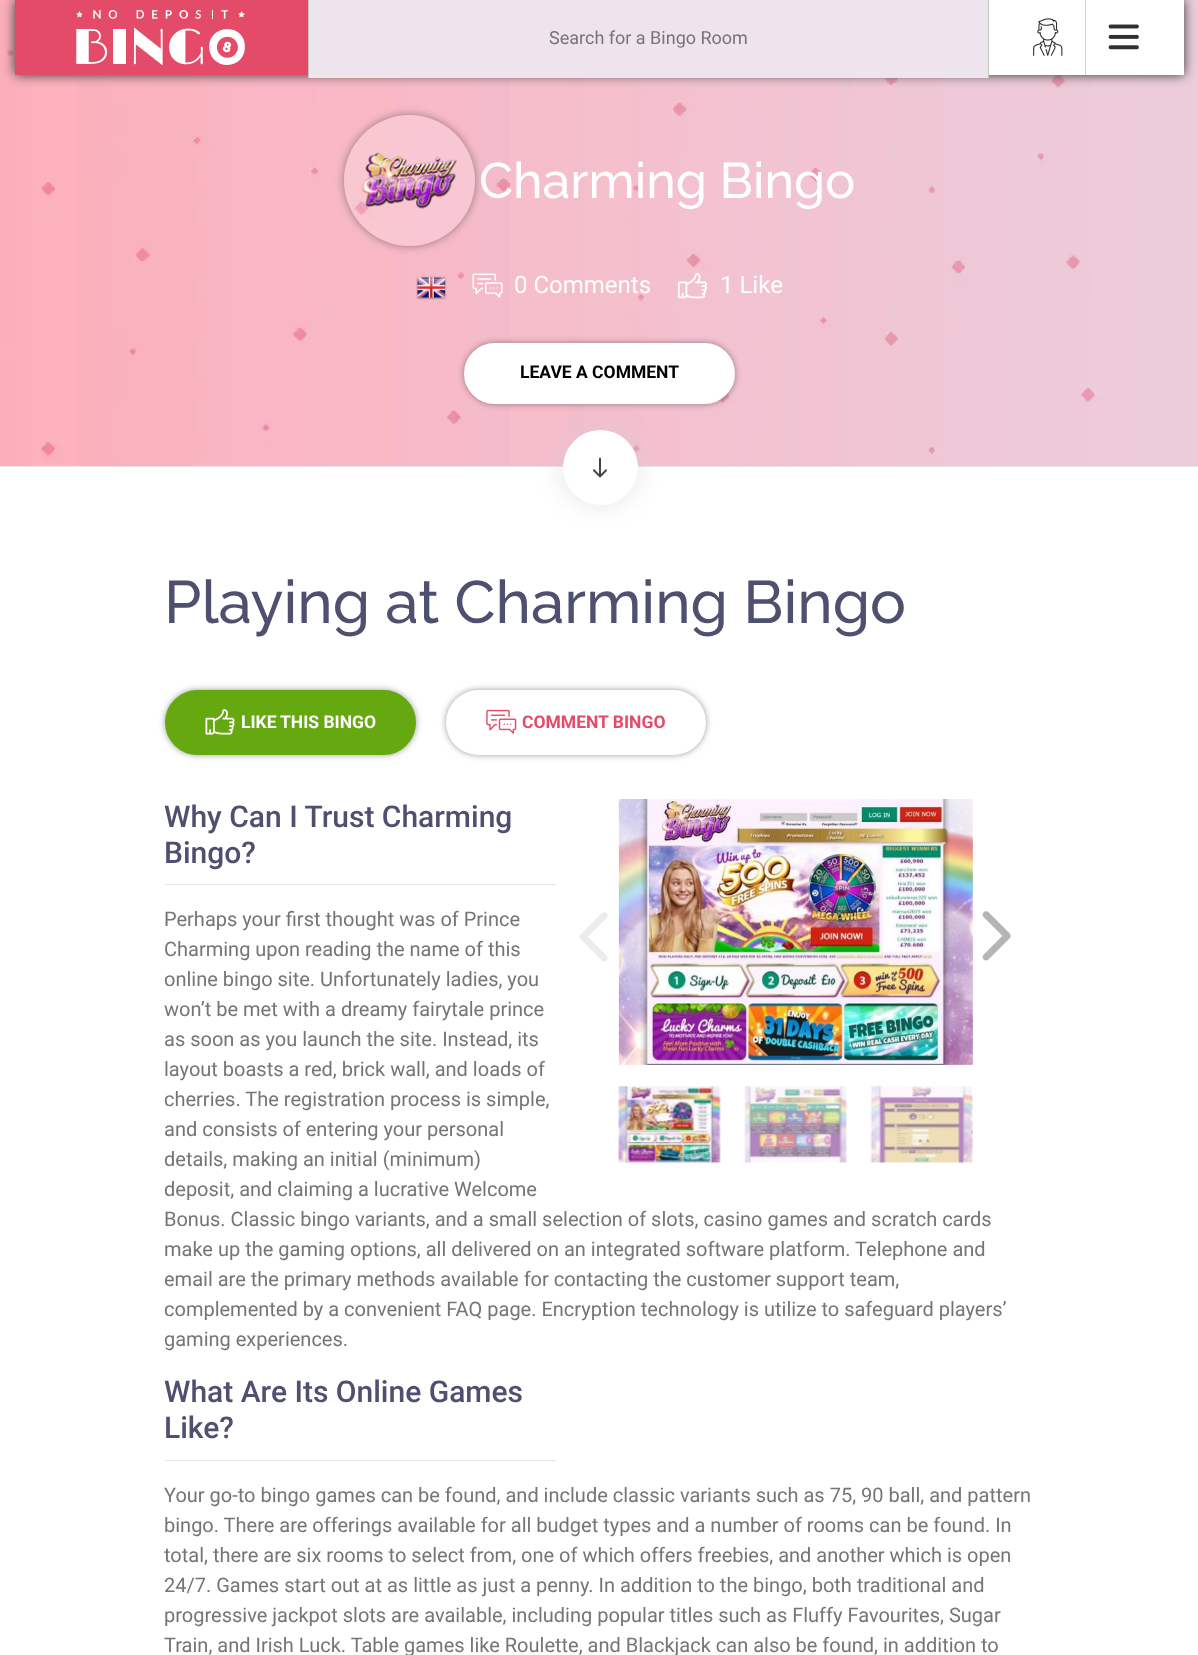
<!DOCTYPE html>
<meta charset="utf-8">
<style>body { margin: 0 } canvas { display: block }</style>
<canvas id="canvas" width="1198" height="1655"></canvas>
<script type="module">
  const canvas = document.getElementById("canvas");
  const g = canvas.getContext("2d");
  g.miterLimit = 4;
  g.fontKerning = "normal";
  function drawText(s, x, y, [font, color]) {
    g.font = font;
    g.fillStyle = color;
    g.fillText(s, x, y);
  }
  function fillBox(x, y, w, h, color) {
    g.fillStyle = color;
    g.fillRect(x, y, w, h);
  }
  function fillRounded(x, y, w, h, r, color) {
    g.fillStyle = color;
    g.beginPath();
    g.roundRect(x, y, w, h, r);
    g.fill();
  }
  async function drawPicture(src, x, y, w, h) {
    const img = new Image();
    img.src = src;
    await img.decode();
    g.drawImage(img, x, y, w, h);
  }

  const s1 = ["18px Roboto", "#757575"];
  const s2 = ["500 50px Raleway", "#FFFFFF"];
  const s3 = ["24px Roboto", "#FFFFFF"];
  const s4 = ["bold 17.5px Roboto", "#000000"];
  const s5 = ["500 60px Raleway", "#4F4F6F"];
  const s6 = ["bold 17.5px Roboto", "#FFFFFF"];
  const s7 = ["bold 17.5px Roboto", "#E34B69"];
  const s8 = ["500 30px Roboto", "#4F4F6F"];
  const s9 = ["20px Roboto", "#757575"];

  fillBox(0, 0, 1198, 1655, "#FFFFFF");
  await drawPicture("pic1.png", 0, 0, 1198, 466);
  g.fillStyle = "#343638";
  g.filter = "blur(6px)";
  g.beginPath();
  g.rect(15, 0, 1169, 75);
  g.fill();
  g.filter = "none";
  fillBox(989, 0, 195, 75, "#FFFFFF");
  fillBox(15, 0, 293, 75, "#E34B69");
  await drawPicture("pic2.png", 76, 10, 169, 55);
  fillBox(309, 0, 679, 78, "#EEE4EE");
  fillBox(988, 0, 1, 78, "#C6C5C5");
  fillBox(308, 0, 1, 78, "#C6C5C5");
  drawText("Search for a Bingo Room", 549, 44, s1);
  fillBox(1085, 0, 1, 75, "#D1D1D1");
  await drawPicture("pic3.png", 1033, 18, 30, 38);
  await drawPicture("pic4.png", 1108, 24, 31, 26);
  g.save();
  g.beginPath();
  g.moveTo(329, 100);
  g.lineTo(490, 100);
  g.lineTo(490, 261);
  g.lineTo(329, 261);
  g.closePath();
  g.moveTo(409.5, 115);
  g.bezierCurveTo(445.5, 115, 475, 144.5, 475, 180.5);
  g.bezierCurveTo(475, 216.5, 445.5, 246, 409.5, 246);
  g.bezierCurveTo(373.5, 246, 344, 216.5, 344, 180.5);
  g.bezierCurveTo(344, 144.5, 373.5, 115, 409.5, 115);
  g.closePath();
  g.clip("evenodd");
  g.fillStyle = "rgba(52, 54, 56, 0.5)";
  g.filter = "blur(4.5px)";
  g.beginPath();
  g.roundRect(344, 115, 131, 131, 65.5);
  g.fill();
  g.filter = "none";
  g.restore();
  g.fillStyle = "rgba(255, 255, 255, 0.2)";
  g.beginPath();
  g.arc(409.5, 180.5, 65.5, 0, Math.PI * 2);
  g.fill();
  await drawPicture("pic5.png", 362, 152, 95, 57);
  drawText("Charming Bingo", 479, 198, s2);
  await drawPicture("pic6.png", 416, 276, 31, 24);
  await drawPicture("pic7.png", 472, 273, 31, 25);
  drawText("0 Comments", 514, 293, s3);
  await drawPicture("pic8.png", 678, 273, 29, 26);
  drawText("1 Like", 720, 293, s3);
  g.fillStyle = "rgba(52, 54, 56, 0.5)";
  g.filter = "blur(3px)";
  g.beginPath();
  g.roundRect(464, 343, 271, 61, 30.5);
  g.fill();
  g.filter = "none";
  g.fillStyle = "#FFFFFF";
  g.beginPath();
  g.roundRect(465.5, 344.5, 268, 58, 29);
  g.fill();
  g.strokeStyle = "#FFFFFF";
  g.lineWidth = 3;
  g.stroke();
  drawText("LEAVE A COMMENT", 520, 378, s4);
  fillBox(0, 466, 1198, 1, "#E6E6E6");
  g.fillStyle = "rgba(204, 204, 223, 0.3)";
  g.filter = "blur(9.5px)";
  g.beginPath();
  g.roundRect(556, 424, 88, 87, 43.5);
  g.fill();
  g.filter = "none";
  g.fillStyle = "#FFFFFF";
  g.beginPath();
  g.arc(600.5, 467.5, 37.5, 0, Math.PI * 2);
  g.fill();
  await drawPicture("pic9.png", 593, 457, 14, 21);
  drawText("Playing at Charming Bingo", 164, 623, s5);
  g.fillStyle = "rgba(52, 54, 56, 0.5)";
  g.filter = "blur(3px)";
  g.beginPath();
  g.roundRect(165, 690, 251, 65, 32.5);
  g.fill();
  g.filter = "none";
  g.fillStyle = "#66A80F";
  g.beginPath();
  g.roundRect(166.5, 691.5, 248, 62, 31);
  g.fill();
  g.strokeStyle = "#66A80F";
  g.stroke();
  await drawPicture("pic10.png", 205, 709, 30, 26);
  drawText("LIKE", 241, 728, s6);
  drawText("THIS BINGO", 280, 728, s6);
  g.fillStyle = "rgba(52, 54, 56, 0.5)";
  g.filter = "blur(3px)";
  g.beginPath();
  g.roundRect(446, 690, 260, 65, 32.5);
  g.fill();
  g.filter = "none";
  fillRounded(446, 690, 260, 65, 32.5, "#FFFFFF");
  await drawPicture("pic11.png", 486, 709, 31, 25);
  drawText("COMMENT BINGO", 522, 728, s7);
  await drawPicture("pic12.png", 579, 912, 29, 50);
  await drawPicture("pic13.png", 618, 799, 355, 266);
  await drawPicture("pic14.png", 982, 911, 29, 50);
  await drawPicture("pic15.png", 618, 1086, 103, 78);
  await drawPicture("pic16.png", 744, 1086, 103, 77);
  await drawPicture("pic17.png", 870, 1086, 103, 78);
  fillBox(165, 884, 391, 1, "#E6E6E6");
  drawText("Why Can I Trust Charming", 164, 827, s8);
  drawText("Bingo?", 164, 863, s8);
  drawText("Perhaps your first thought was of Prince", 164, 926, s9);
  drawText("Charming upon reading the name of this", 164, 956, s9);
  drawText("online bingo site. Unfortunately ladies, you", 164, 986, s9);
  drawText("won’t be met with a dreamy fairytale prince", 164, 1016, s9);
  drawText("as soon as you launch the site. Instead, its", 164, 1046, s9);
  drawText("layout boasts a red, brick wall, and loads of", 164, 1076, s9);
  drawText("cherries. The registration process is simple,", 164, 1106, s9);
  drawText("and consists of entering your personal", 164, 1136, s9);
  drawText("details, making an initial (minimum)", 164, 1166, s9);
  drawText("deposit, and claiming a lucrative Welcome", 164, 1196, s9);
  drawText("Bonus. Classic bingo variants, and a small selection of slots, casino games and scratch cards", 164, 1226, s9);
  drawText("make up the gaming options, all delivered on an integrated software platform. Telephone and", 164, 1256, s9);
  drawText("email are the primary methods available for contacting the customer support team,", 164, 1286, s9);
  drawText("complemented by a convenient FAQ page. Encryption technology is utilize to safeguard players’", 164, 1316, s9);
  drawText("gaming experiences.", 164, 1346, s9);
  fillBox(165, 1460, 391, 1, "#E6E6E6");
  drawText("What Are Its Online Games", 164, 1402, s8);
  drawText("Like?", 164, 1438, s8);
  drawText("Your go-to bingo games can be found, and include classic variants such as 75, 90 ball, and pattern", 164, 1502, s9);
  drawText("bingo. There are offerings available for all budget types and a number of rooms can be found. In", 164, 1532, s9);
  drawText("total, there are six rooms to select from, one of which offers freebies, and another which is open", 164, 1562, s9);
  drawText("24/7. Games start out at as little as just a penny. In addition to the bingo, both traditional and", 164, 1592, s9);
  drawText("progressive jackpot slots are available, including popular titles such as Fluffy Favourites, Sugar", 164, 1622, s9);
  drawText("Train, and Irish Luck. Table games like Roulette, and Blackjack can also be found, in addition to", 164, 1652, s9);
</script>
